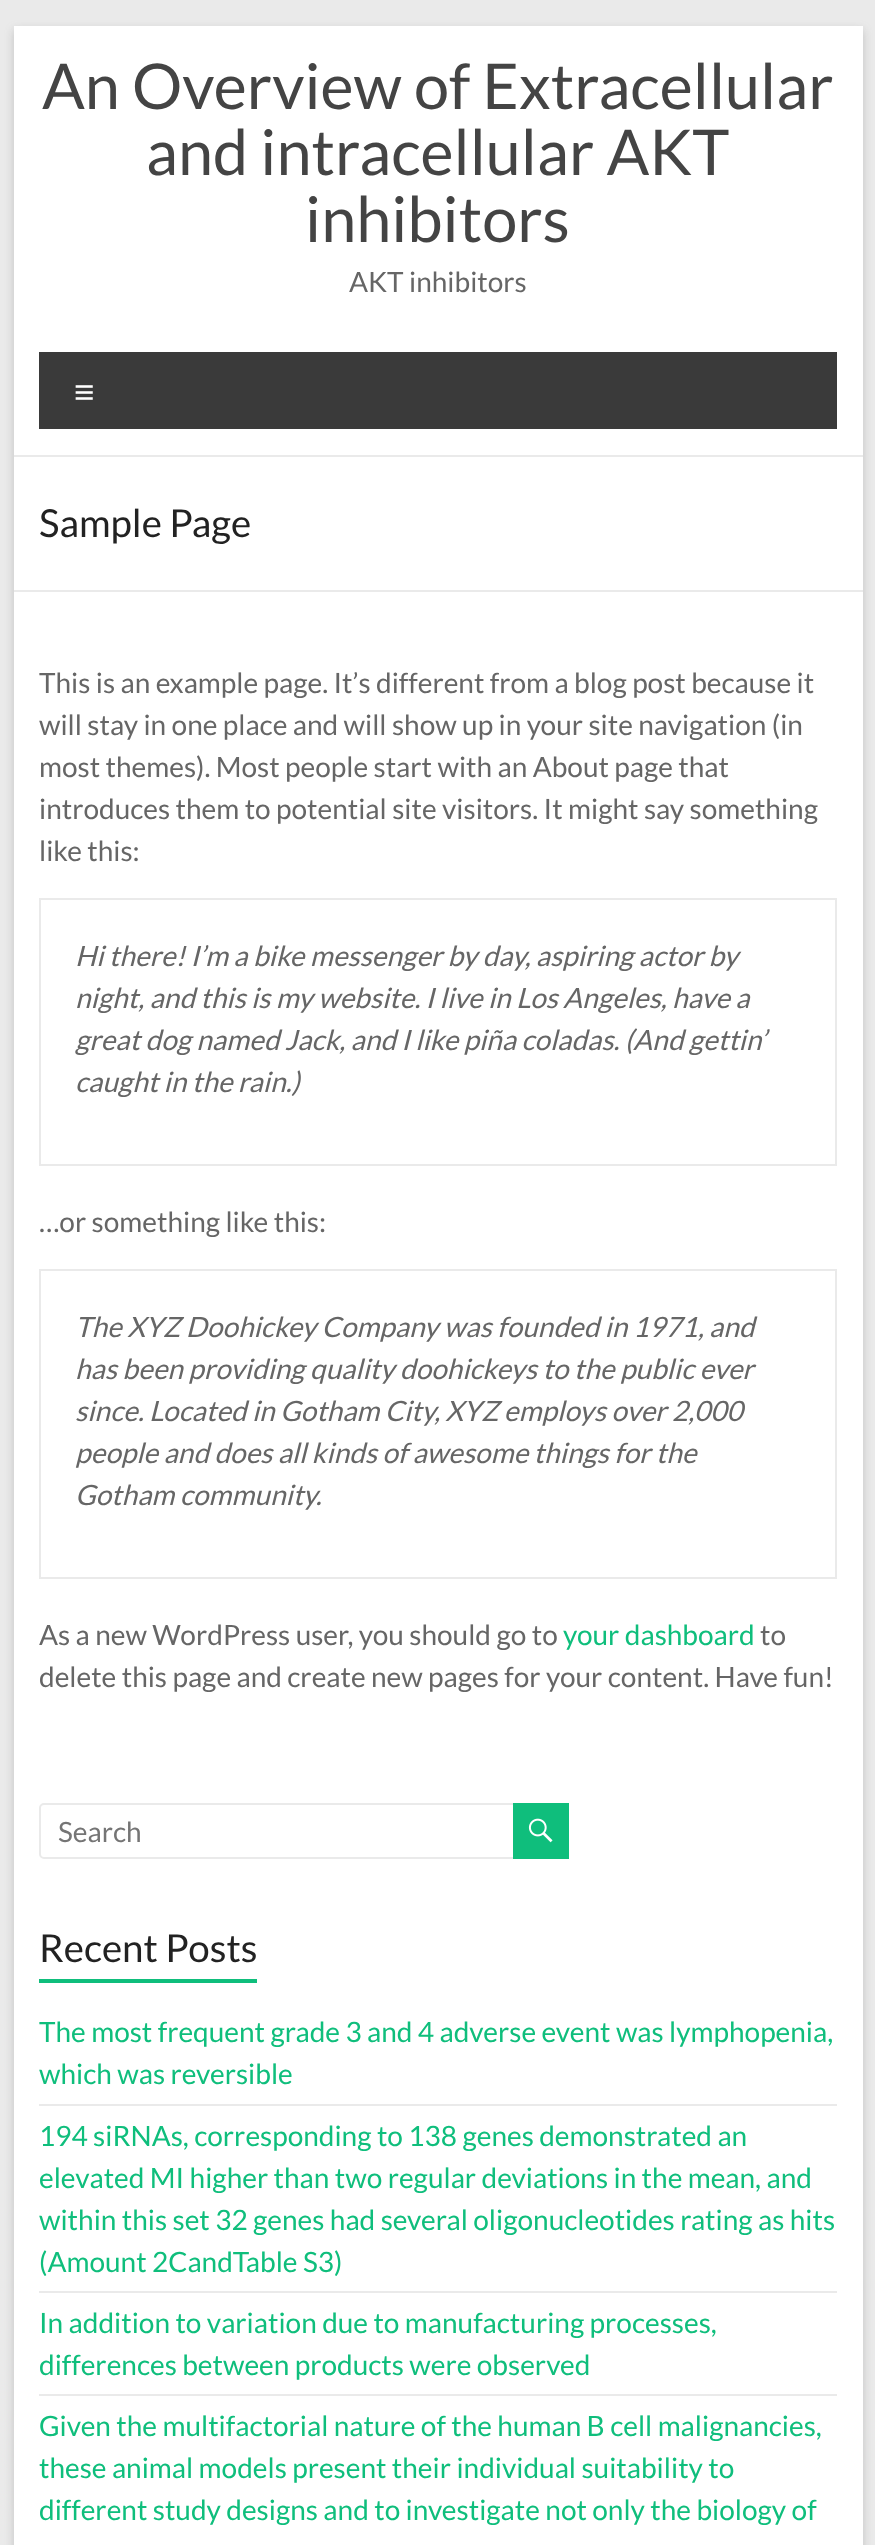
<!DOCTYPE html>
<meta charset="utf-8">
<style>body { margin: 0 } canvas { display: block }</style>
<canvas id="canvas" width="875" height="2545"></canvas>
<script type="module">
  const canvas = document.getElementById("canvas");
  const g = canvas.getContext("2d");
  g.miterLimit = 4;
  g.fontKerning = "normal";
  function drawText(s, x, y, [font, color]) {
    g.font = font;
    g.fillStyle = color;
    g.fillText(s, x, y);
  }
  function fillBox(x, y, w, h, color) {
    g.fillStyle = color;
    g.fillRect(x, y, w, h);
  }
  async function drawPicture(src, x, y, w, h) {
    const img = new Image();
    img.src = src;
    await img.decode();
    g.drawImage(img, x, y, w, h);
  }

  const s1 = ["63px Lato", "#444444"];
  const s2 = ["28px Lato", "#666666"];
  const s3 = ["35px Liberation Sans", "#FFFFFF"];
  const s4 = ["38.5px Lato", "#222222"];
  const s5 = ["italic 28px Lato", "#666666"];
  const s6 = ["28px Lato", "#0FBE7C"];
  const s7 = ["28px Lato", "#757575"];

  fillBox(0, 0, 875, 2545, "#EAEAEA");
  g.fillStyle = "rgba(100, 100, 100, 0.3)";
  g.filter = "blur(5px)";
  g.beginPath();
  g.rect(14, 30, 849, 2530);
  g.fill();
  g.filter = "none";
  fillBox(14, 26, 849, 2519, "#FFFFFF");
  fillBox(14, 455, 849, 2, "#EAEAEA");
  drawText("An Overview of Extracellular", 42, 109, s1);
  drawText("and intracellular AKT", 146, 175, s1);
  drawText("inhibitors", 305, 242, s1);
  drawText("AKT inhibitors", 349, 292, s2);
  fillBox(39, 352, 798, 77, "#3A3A3A");
  drawText("≡", 74, 404, s3);
  fillBox(14, 590, 849, 2, "#EAEAEA");
  drawText("Sample Page", 39, 537, s4);
  drawText("This is an example page. It’s different from a blog post because it", 39, 693, s2);
  drawText("will stay in one place and will show up in your site navigation (in", 39, 735, s2);
  drawText("most themes). Most people start with an About page that", 39, 777, s2);
  drawText("introduces them to potential site visitors. It might say something", 39, 819, s2);
  drawText("like this:", 39, 861, s2);
  g.strokeStyle = "#EAEAEA";
  g.lineWidth = 2;
  g.strokeRect(40, 899, 796, 266);
  drawText("Hi there! I’m a bike messenger by day, aspiring actor by", 75, 966, s5);
  drawText("night, and this is my website. I live in Los Angeles, have a", 75, 1008, s5);
  drawText("great dog named Jack, and I like piña coladas. (And gettin’", 75, 1050, s5);
  drawText("caught in the rain.)", 75, 1092, s5);
  drawText("…or something like this:", 39, 1232, s2);
  g.strokeRect(40, 1270, 796, 308);
  drawText("The XYZ Doohickey Company was founded in 1971, and", 75, 1337, s5);
  drawText("has been providing quality doohickeys to the public ever", 75, 1379, s5);
  drawText("since. Located in Gotham City, XYZ employs over 2,000", 75, 1421, s5);
  drawText("people and does all kinds of awesome things for the", 75, 1463, s5);
  drawText("Gotham community.", 75, 1505, s5);
  drawText("As a new WordPress user, you should go to", 39, 1645, s2);
  drawText("your dashboard", 563, 1645, s6);
  drawText("to", 760, 1645, s2);
  drawText("delete this page and create new pages for your content. Have fun!", 39, 1687, s2);
  g.beginPath();
  g.roundRect(40, 1804, 477, 54, 4);
  g.stroke();
  drawText("Search", 58, 1842, s7);
  fillBox(513, 1803, 56, 56, "#0FBE7C");
  await drawPicture("pic1.png", 528, 1818, 25, 25);
  drawText("Recent Posts", 39, 1962, s4);
  fillBox(39, 1979, 218, 4, "#0FBE7C");
  fillBox(39, 2104, 798, 2, "#EAEAEA");
  drawText("The most frequent grade 3 and 4 adverse event was lymphopenia,", 39, 2042, s6);
  drawText("which was reversible", 39, 2084, s6);
  fillBox(39, 2291, 798, 2, "#EAEAEA");
  drawText("194 siRNAs, corresponding to 138 genes demonstrated an", 39, 2146, s6);
  drawText("elevated MI higher than two regular deviations in the mean, and", 39, 2188, s6);
  drawText("within this set 32 genes had several oligonucleotides rating as hits", 39, 2230, s6);
  drawText("(Amount 2CandTable S3)", 39, 2272, s6);
  fillBox(39, 2394, 798, 2, "#EAEAEA");
  drawText("In addition to variation due to manufacturing processes,", 39, 2333, s6);
  drawText("differences between products were observed", 39, 2375, s6);
  drawText("Given the multifactorial nature of the human B cell malignancies,", 39, 2436, s6);
  drawText("these animal models present their individual suitability to", 39, 2478, s6);
  drawText("different study designs and to investigate not only the biology of", 39, 2520, s6);
</script>
